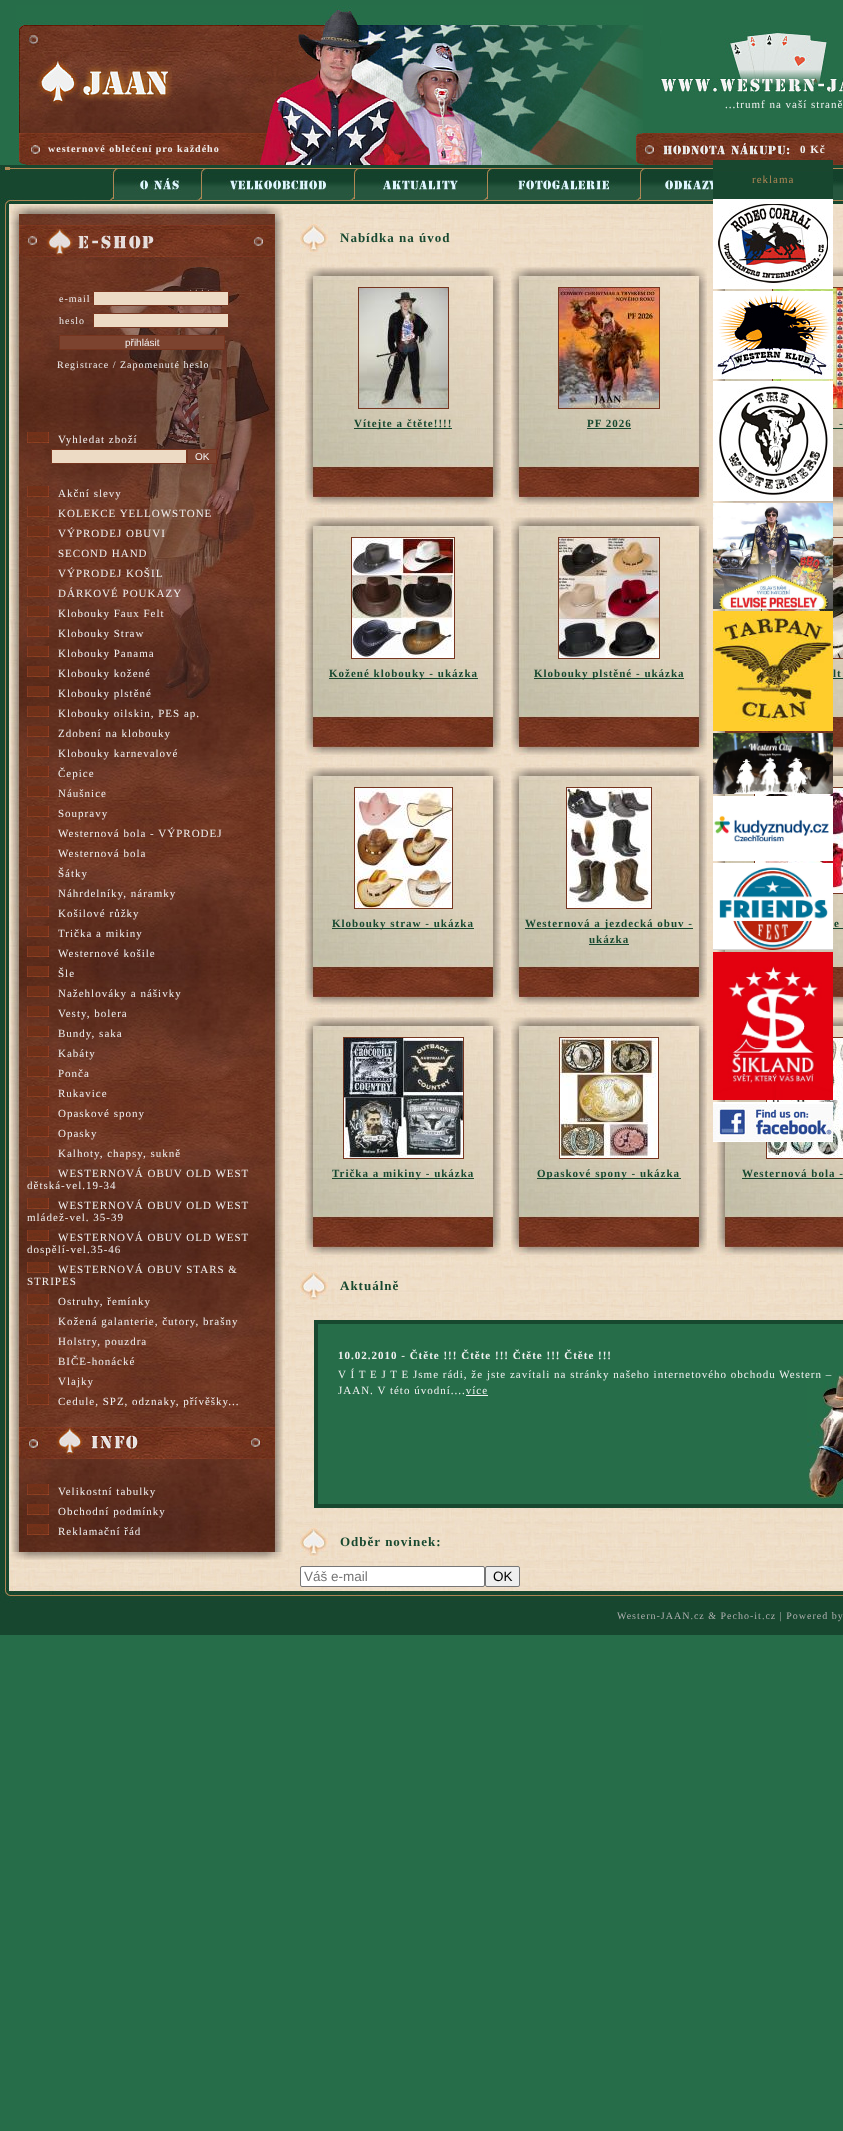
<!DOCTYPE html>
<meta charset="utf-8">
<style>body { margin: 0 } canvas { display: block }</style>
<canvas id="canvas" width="843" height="2131"></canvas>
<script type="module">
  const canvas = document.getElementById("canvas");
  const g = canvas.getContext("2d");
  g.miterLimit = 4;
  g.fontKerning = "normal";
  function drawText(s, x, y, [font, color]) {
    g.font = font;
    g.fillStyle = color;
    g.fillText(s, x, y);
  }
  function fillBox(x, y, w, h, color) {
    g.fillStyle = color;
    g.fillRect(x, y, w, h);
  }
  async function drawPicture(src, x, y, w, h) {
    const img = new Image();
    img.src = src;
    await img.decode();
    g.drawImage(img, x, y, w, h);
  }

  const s1 = ["11px Liberation Serif", "#F0F0F0"];
  const s2 = ["bold 10px Liberation Serif", "#F0F0F0"];
  const s3 = ["bold 11px Liberation Serif", "#F0F0F0"];
  const s4 = ["11px Liberation Serif", "#B08655"];
  const s5 = ["10px Liberation Serif", "#F0F0F0"];
  const s6 = ["10px Liberation Sans", "#F0F0F0"];
  const s7 = ["bold 13px Liberation Serif", "#17482F"];
  const s8 = ["bold 11px Liberation Serif", "#17482F"];
  const s9 = ["13.5px Liberation Sans", "#757575"];
  const s10 = ["13.5px Liberation Sans", "#000000"];
  const s11 = ["10px Liberation Serif", "#B0B0B0"];

  fillBox(0, 0, 843, 2131, "#266D49");
  await drawPicture("pic1.png", 16, 5, 627, 160);
  await drawPicture("pic2.png", 32, 55, 150, 52);
  await drawPicture("pic3.png", 660, 30, 183, 64);
  g.letterSpacing = "1px";
  drawText("...trumf na vaší straně", 725, 108, s1);
  drawText("westernové oblečení pro každého", 48, 152, s2);
  await drawPicture("pic4.png", 636, 131, 207, 34);
  drawText("0 Kč", 800, 153, s3);
  await drawPicture("pic5.png", 0, 165, 843, 49);
  await drawPicture("pic6.png", 110, 168, 92, 32);
  await drawPicture("pic7.png", 202, 168, 153, 32);
  await drawPicture("pic8.png", 355, 168, 133, 32);
  await drawPicture("pic9.png", 488, 168, 153, 32);
  await drawPicture("pic10.png", 641, 168, 72, 32);
  await drawPicture("pic11.png", 833, 168, 10, 32);
  fillBox(713, 160, 120, 10, "#18472F");
  drawText("reklama", 752, 183, s4);
  await drawPicture("pic22.png", 0, 214, 843, 1373);
  await drawPicture("pic33.png", 717, 267, 126, 240);
  g.strokeStyle = "#76351F";
  g.strokeRect(772.5, 287.5, 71, 121);
  await drawPicture("pic34.png", 773, 288, 70, 120);
  await drawPicture("pic12.png", 713, 199, 120, 90);
  await drawPicture("pic13.png", 713, 291, 120, 88);
  await drawPicture("pic14.png", 713, 381, 120, 120);
  await drawPicture("pic33.png", 717, 517, 126, 240);
  g.strokeRect(761.5, 537.5, 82, 121);
  await drawPicture("pic37.png", 762, 538, 81, 120);
  await drawPicture("pic15.png", 713, 503, 120, 106);
  await drawPicture("pic16.png", 713, 611, 120, 120);
  await drawPicture("pic33.png", 717, 767, 126, 240);
  g.strokeRect(754.5, 787.5, 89, 106);
  await drawPicture("pic40.png", 755, 788, 88, 105);
  await drawPicture("pic17.png", 713, 733, 120, 61);
  await drawPicture("pic18.png", 713, 796, 120, 65);
  await drawPicture("pic19.png", 713, 863, 120, 87);
  await drawPicture("pic33.png", 717, 1017, 126, 240);
  g.strokeRect(766.5, 1037.5, 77, 121);
  await drawPicture("pic43.png", 767, 1038, 76, 120);
  await drawPicture("pic20.png", 713, 952, 120, 148);
  await drawPicture("pic21.png", 713, 1102, 120, 40);
  await drawPicture("pic23.png", 9, 214, 276, 53);
  await drawPicture("pic24.png", 9, 702, 276, 850);
  await drawPicture("pic25.png", 9, 267, 276, 435);
  drawText("e-mail", 59, 302, s5);
  g.fillStyle = "#EDDBC5";
  g.beginPath();
  g.rect(93.5, 291.5, 135, 14);
  g.fill();
  g.stroke();
  drawText("heslo", 59, 324, s5);
  g.fillStyle = "#EDDBC5";
  g.beginPath();
  g.rect(93.5, 313.5, 135, 14);
  g.fill();
  g.stroke();
  g.fillStyle = "#7C432F";
  g.beginPath();
  g.rect(59.5, 335.5, 165, 14);
  g.fill();
  g.stroke();
  g.letterSpacing = "0px";
  drawText("přihlásit", 125, 346, s6);
  g.letterSpacing = "1px";
  drawText("Registrace / Zapomenuté heslo", 57, 368, s5);
  await drawPicture("pic26.png", 27, 432, 22, 11);
  drawText("Vyhledat zboží", 58, 443, s1);
  g.fillStyle = "#EDDBC5";
  g.beginPath();
  g.rect(51.5, 449.5, 135, 14);
  g.fill();
  g.stroke();
  g.fillStyle = "#7C432F";
  g.beginPath();
  g.rect(187.5, 449.5, 29, 14);
  g.fill();
  g.stroke();
  g.letterSpacing = "0px";
  drawText("OK", 195, 460, s6);
  await drawPicture("pic26.png", 27, 486, 22, 11);
  g.letterSpacing = "1px";
  drawText("Akční slevy", 58, 497, s1);
  await drawPicture("pic26.png", 27, 506, 22, 11);
  drawText("KOLEKCE YELLOWSTONE", 58, 517, s1);
  await drawPicture("pic26.png", 27, 526, 22, 11);
  drawText("VÝPRODEJ OBUVI", 58, 537, s1);
  await drawPicture("pic26.png", 27, 546, 22, 11);
  drawText("SECOND HAND", 58, 557, s1);
  await drawPicture("pic26.png", 27, 566, 22, 11);
  drawText("VÝPRODEJ KOŠIL", 58, 577, s1);
  await drawPicture("pic26.png", 27, 586, 22, 11);
  drawText("DÁRKOVÉ POUKAZY", 58, 597, s1);
  await drawPicture("pic26.png", 27, 606, 22, 11);
  drawText("Klobouky Faux Felt", 58, 617, s1);
  await drawPicture("pic26.png", 27, 626, 22, 11);
  drawText("Klobouky Straw", 58, 637, s1);
  await drawPicture("pic26.png", 27, 646, 22, 11);
  drawText("Klobouky Panama", 58, 657, s1);
  await drawPicture("pic26.png", 27, 666, 22, 11);
  drawText("Klobouky kožené", 58, 677, s1);
  await drawPicture("pic26.png", 27, 686, 22, 11);
  drawText("Klobouky plstěné", 58, 697, s1);
  await drawPicture("pic26.png", 27, 706, 22, 11);
  drawText("Klobouky oilskin, PES ap.", 58, 717, s1);
  await drawPicture("pic26.png", 27, 726, 22, 11);
  drawText("Zdobení na klobouky", 58, 737, s1);
  await drawPicture("pic26.png", 27, 746, 22, 11);
  drawText("Klobouky karnevalové", 58, 757, s1);
  await drawPicture("pic26.png", 27, 766, 22, 11);
  drawText("Čepice", 58, 777, s1);
  await drawPicture("pic26.png", 27, 786, 22, 11);
  drawText("Náušnice", 58, 797, s1);
  await drawPicture("pic26.png", 27, 806, 22, 11);
  drawText("Soupravy", 58, 817, s1);
  await drawPicture("pic26.png", 27, 826, 22, 11);
  drawText("Westernová bola - VÝPRODEJ", 58, 837, s1);
  await drawPicture("pic26.png", 27, 846, 22, 11);
  drawText("Westernová bola", 58, 857, s1);
  await drawPicture("pic26.png", 27, 866, 22, 11);
  drawText("Šátky", 58, 877, s1);
  await drawPicture("pic26.png", 27, 886, 22, 11);
  drawText("Náhrdelníky, náramky", 58, 897, s1);
  await drawPicture("pic26.png", 27, 906, 22, 11);
  drawText("Košilové růžky", 58, 917, s1);
  await drawPicture("pic26.png", 27, 926, 22, 11);
  drawText("Trička a mikiny", 58, 937, s1);
  await drawPicture("pic26.png", 27, 946, 22, 11);
  drawText("Westernové košile", 58, 957, s1);
  await drawPicture("pic26.png", 27, 966, 22, 11);
  drawText("Šle", 58, 977, s1);
  await drawPicture("pic26.png", 27, 986, 22, 11);
  drawText("Nažehlováky a nášivky", 58, 997, s1);
  await drawPicture("pic26.png", 27, 1006, 22, 11);
  drawText("Vesty, bolera", 58, 1017, s1);
  await drawPicture("pic26.png", 27, 1026, 22, 11);
  drawText("Bundy, saka", 58, 1037, s1);
  await drawPicture("pic26.png", 27, 1046, 22, 11);
  drawText("Kabáty", 58, 1057, s1);
  await drawPicture("pic26.png", 27, 1066, 22, 11);
  drawText("Ponča", 58, 1077, s1);
  await drawPicture("pic26.png", 27, 1086, 22, 11);
  drawText("Rukavice", 58, 1097, s1);
  await drawPicture("pic26.png", 27, 1106, 22, 11);
  drawText("Opaskové spony", 58, 1117, s1);
  await drawPicture("pic26.png", 27, 1126, 22, 11);
  drawText("Opasky", 58, 1137, s1);
  await drawPicture("pic26.png", 27, 1146, 22, 11);
  drawText("Kalhoty, chapsy, sukně", 58, 1157, s1);
  await drawPicture("pic26.png", 27, 1166, 22, 11);
  drawText("WESTERNOVÁ OBUV OLD WEST", 58, 1177, s1);
  drawText("dětská-vel.19-34", 27, 1189, s1);
  await drawPicture("pic26.png", 27, 1198, 22, 11);
  drawText("WESTERNOVÁ OBUV OLD WEST", 58, 1209, s1);
  drawText("mládež-vel. 35-39", 27, 1221, s1);
  await drawPicture("pic26.png", 27, 1230, 22, 11);
  drawText("WESTERNOVÁ OBUV OLD WEST", 58, 1241, s1);
  drawText("dospělí-vel.35-46", 27, 1253, s1);
  await drawPicture("pic26.png", 27, 1262, 22, 11);
  drawText("WESTERNOVÁ OBUV STARS &", 58, 1273, s1);
  drawText("STRIPES", 27, 1285, s1);
  await drawPicture("pic26.png", 27, 1294, 22, 11);
  drawText("Ostruhy, řemínky", 58, 1305, s1);
  await drawPicture("pic26.png", 27, 1314, 22, 11);
  drawText("Kožená galanterie, čutory, brašny", 58, 1325, s1);
  await drawPicture("pic26.png", 27, 1334, 22, 11);
  drawText("Holstry, pouzdra", 58, 1345, s1);
  await drawPicture("pic26.png", 27, 1354, 22, 11);
  drawText("BIČE-honácké", 58, 1365, s1);
  await drawPicture("pic26.png", 27, 1374, 22, 11);
  drawText("Vlajky", 58, 1385, s1);
  await drawPicture("pic26.png", 27, 1394, 22, 11);
  drawText("Cedule, SPZ, odznaky, přívěšky...", 58, 1405, s1);
  await drawPicture("pic27.png", 19, 1427, 256, 32);
  await drawPicture("pic26.png", 27, 1484, 22, 11);
  drawText("Velikostní tabulky", 58, 1495, s1);
  await drawPicture("pic26.png", 27, 1504, 22, 11);
  drawText("Obchodní podmínky", 58, 1515, s1);
  await drawPicture("pic26.png", 27, 1524, 22, 11);
  drawText("Reklamační řád", 58, 1535, s1);
  await drawPicture("pic28.png", 9, 1552, 276, 10);
  await drawPicture("pic29.png", 300, 224, 28, 28);
  drawText("Nabídka na úvod", 340, 242, s7);
  await drawPicture("pic30.png", 305, 267, 196, 240);
  g.strokeRect(358.5, 287.5, 90, 121);
  await drawPicture("pic31.png", 359, 288, 89, 120);
  fillBox(354, 428, 98, 1, "#17482F");
  drawText("Vítejte a čtěte!!!!", 354, 427, s8);
  await drawPicture("pic30.png", 511, 267, 196, 240);
  g.strokeRect(558.5, 287.5, 101, 121);
  await drawPicture("pic32.png", 559, 288, 100, 120);
  drawText("PF 2026", 587, 427, s8);
  fillBox(587, 428, 44, 1, "#17482F");
  drawText("-", 839, 427, s8);
  fillBox(833, 428, 10, 1, "#17482F");
  await drawPicture("pic30.png", 305, 517, 196, 240);
  g.strokeRect(351.5, 537.5, 103, 121);
  await drawPicture("pic35.png", 352, 538, 102, 120);
  fillBox(329, 678, 149, 1, "#17482F");
  drawText("Kožené klobouky - ukázka", 329, 677, s8);
  await drawPicture("pic30.png", 511, 517, 196, 240);
  g.strokeRect(558.5, 537.5, 101, 121);
  await drawPicture("pic36.png", 559, 538, 100, 120);
  fillBox(534, 678, 150, 1, "#17482F");
  drawText("Klobouky plstěné - ukázka", 534, 677, s8);
  drawText("lt", 833, 677, s8);
  fillBox(833, 678, 10, 1, "#17482F");
  await drawPicture("pic30.png", 305, 767, 196, 240);
  g.strokeRect(354.5, 787.5, 98, 121);
  await drawPicture("pic38.png", 355, 788, 97, 120);
  fillBox(332, 928, 142, 1, "#17482F");
  drawText("Klobouky straw - ukázka", 332, 927, s8);
  await drawPicture("pic30.png", 511, 767, 196, 240);
  g.strokeRect(566.5, 787.5, 85, 121);
  await drawPicture("pic39.png", 567, 788, 84, 120);
  fillBox(525, 928, 168, 1, "#17482F");
  drawText("Westernová a jezdecká obuv -", 525, 927, s8);
  drawText("ukázka", 589, 943, s8);
  fillBox(589, 944, 40, 1, "#17482F");
  drawText("e", 834, 927, s8);
  fillBox(833, 928, 10, 1, "#17482F");
  await drawPicture("pic30.png", 305, 1017, 196, 240);
  g.strokeRect(343.5, 1037.5, 120, 121);
  await drawPicture("pic41.png", 344, 1038, 119, 120);
  fillBox(332, 1178, 142, 1, "#17482F");
  drawText("Trička a mikiny - ukázka", 332, 1177, s8);
  await drawPicture("pic30.png", 511, 1017, 196, 240);
  g.strokeRect(559.5, 1037.5, 99, 121);
  await drawPicture("pic42.png", 560, 1038, 98, 120);
  fillBox(537, 1178, 144, 1, "#17482F");
  drawText("Opaskové spony - ukázka", 537, 1177, s8);
  drawText("Westernová bola -", 742, 1177, s8);
  fillBox(742, 1178, 101, 1, "#17482F");
  await drawPicture("pic29.png", 300, 1272, 28, 28);
  drawText("Aktuálně", 340, 1290, s7);
  fillBox(318, 1324, 525, 180, "#266D49");
  await drawPicture("pic44.png", 807, 1372, 36, 130);
  g.strokeStyle = "#17482F";
  g.lineWidth = 4;
  g.strokeRect(316, 1322, 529, 184);
  drawText("10.02.2010 - Čtěte !!! Čtěte !!! Čtěte !!! Čtěte !!!", 338, 1359, s3);
  drawText("V Í T E J T E Jsme rádi, že jste zavítali na stránky našeho internetového obchodu Western –", 338, 1378, s1);
  drawText("JAAN. V této úvodní....více", 338, 1394, s1);
  fillBox(466, 1395, 22, 1, "#F0F0F0");
  await drawPicture("pic29.png", 300, 1528, 28, 28);
  drawText("Odběr novinek:", 340, 1546, s7);
  g.fillStyle = "#FFFFFF";
  g.beginPath();
  g.roundRect(300.5, 1566.5, 184, 20, 1.5);
  g.fill();
  g.strokeStyle = "#767676";
  g.lineWidth = 1;
  g.stroke();
  g.letterSpacing = "0px";
  drawText("Váš e-mail", 304, 1581, s9);
  g.fillStyle = "#EFEFEF";
  g.beginPath();
  g.roundRect(485.5, 1566.5, 34, 20, 1.5);
  g.fill();
  g.stroke();
  drawText("OK", 493, 1581, s10);
  await drawPicture("pic45.png", 0, 1587, 843, 48);
  g.letterSpacing = "1px";
  drawText("Western-JAAN.cz & Pecho-it.cz | Powered by", 617, 1619, s11);
</script>
